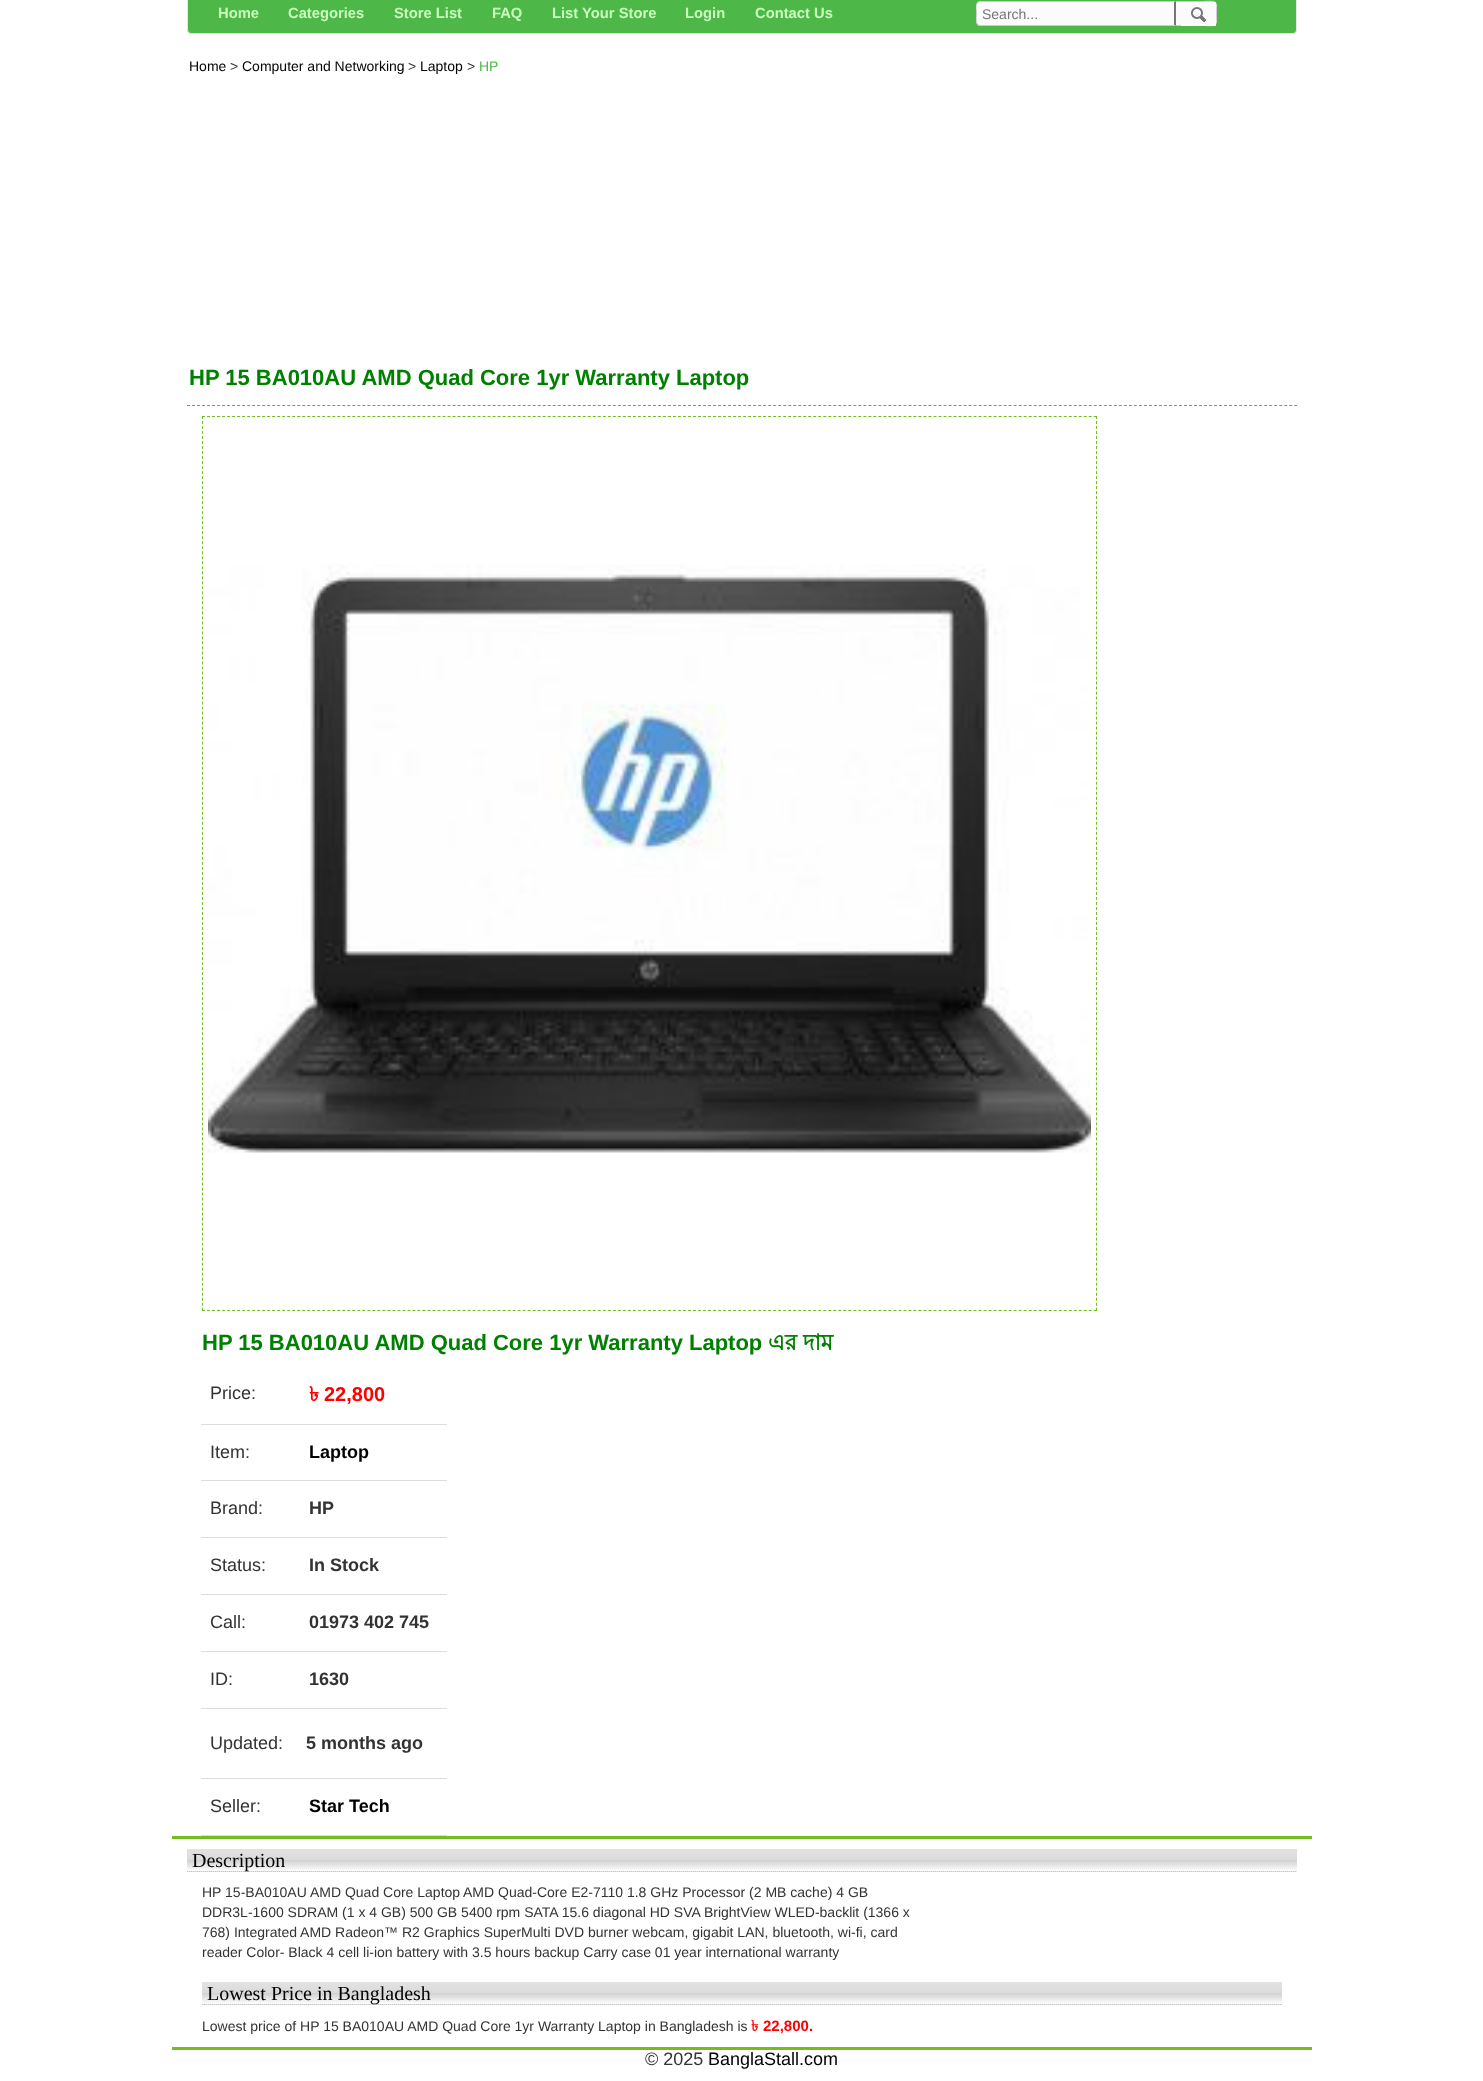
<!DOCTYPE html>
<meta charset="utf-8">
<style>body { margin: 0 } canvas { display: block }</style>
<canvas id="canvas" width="1483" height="2081"></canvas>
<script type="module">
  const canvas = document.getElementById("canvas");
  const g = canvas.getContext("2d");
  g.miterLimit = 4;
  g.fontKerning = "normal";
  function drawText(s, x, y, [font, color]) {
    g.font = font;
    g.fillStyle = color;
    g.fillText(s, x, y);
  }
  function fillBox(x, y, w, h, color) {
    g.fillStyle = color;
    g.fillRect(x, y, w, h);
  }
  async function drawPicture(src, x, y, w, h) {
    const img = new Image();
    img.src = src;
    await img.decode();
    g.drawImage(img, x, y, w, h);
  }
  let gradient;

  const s1 = ["bold 14.75px Liberation Sans", "#CAFCBF"];
  const s2 = ["14px Liberation Sans", "#757575"];
  const s3 = ["14px Liberation Sans", "#000000"];
  const s4 = ["14px Liberation Sans", "#333333"];
  const s5 = ["14px Liberation Sans", "#4DB848"];
  const s6 = ["bold 22px Liberation Sans", "#008000"];
  const s7 = ["bold 22px Lohit Bengali", "#008000"];
  const s8 = ["18px Liberation Sans", "#333333"];
  const s9 = ["bold 20px Lohit Bengali", "#FF0000"];
  const s10 = ["bold 20px Liberation Sans", "#FF0000"];
  const s11 = ["bold 18px Liberation Sans", "#000000"];
  const s12 = ["bold 18px Liberation Sans", "#333333"];
  const s13 = ["20px Liberation Serif", "#000000"];
  const s14 = ["bold 15px Lohit Bengali", "#FF0000"];
  const s15 = ["bold 15px Liberation Sans", "#FF0000"];
  const s16 = ["18px Liberation Sans", "#000000"];

  fillBox(0, 0, 1483, 2081, "#FFFFFF");
  g.fillStyle = "#4DB848";
  g.beginPath();
  g.roundRect(187.5, -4.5, 1109, 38, 3.5);
  g.fill();
  g.strokeStyle = "#E7E7E7";
  g.stroke();
  drawText("Home", 218, 18, s1);
  drawText("Categories", 288, 18, s1);
  drawText("Store List", 394, 18, s1);
  drawText("FAQ", 492, 18, s1);
  drawText("List Your Store", 552, 18, s1);
  drawText("Login", 685, 18, s1);
  drawText("Contact Us", 755, 18, s1);
  g.fillStyle = "#FBFBFB";
  g.beginPath();
  g.roundRect(976, 1, 200, 25, [5, 0, 0, 5]);
  g.fill();
  g.fillStyle = "#CCCCCC";
  g.beginPath();
  g.moveTo(981, 1);
  g.bezierCurveTo(980, 1, 978, 2, 977, 2);
  g.lineTo(978, 3);
  g.bezierCurveTo(979, 2, 980, 2, 981, 2);
  g.lineTo(1174, 2);
  g.lineTo(1176, 1);
  g.closePath();
  g.fill();
  g.fillStyle = "#767676";
  g.beginPath();
  g.moveTo(1176, 1);
  g.lineTo(1174, 2);
  g.lineTo(1174, 25);
  g.lineTo(1176, 26);
  g.closePath();
  g.fill();
  g.fillStyle = "#CCCCCC";
  g.beginPath();
  g.moveTo(1176, 26);
  g.lineTo(1174, 25);
  g.lineTo(980, 25);
  g.lineTo(978, 24);
  g.lineTo(977, 25);
  g.bezierCurveTo(978, 26, 980, 26, 981, 26);
  g.closePath();
  g.fill();
  g.beginPath();
  g.moveTo(976, 6);
  g.lineTo(976, 21);
  g.bezierCurveTo(976, 22.5, 976.5, 24, 977.5, 24.5);
  g.lineTo(978, 24);
  g.bezierCurveTo(977.5, 23.5, 977, 22.5, 977, 21.5);
  g.bezierCurveTo(976.5, 19, 977, 16.5, 977, 14);
  g.lineTo(976.5, 7);
  g.bezierCurveTo(977, 5.5, 977, 4, 978, 3);
  g.lineTo(977.5, 2.5);
  g.bezierCurveTo(976.5, 3, 976, 4.5, 976, 6);
  g.closePath();
  g.fill();
  drawText("Search...", 982, 19, s2);
  g.fillStyle = "#FBFBFB";
  g.beginPath();
  g.roundRect(1176, 1, 41, 25, [0, 5, 5, 0]);
  g.fill();
  g.fillStyle = "#CCCCCC";
  g.beginPath();
  g.moveTo(1176, 1);
  g.lineTo(1200, 1);
  g.bezierCurveTo(1216, 1, 1217, -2, 1217, 14);
  g.bezierCurveTo(1217, 29, 1216, 26, 1200, 26);
  g.lineTo(1176, 26);
  g.closePath();
  g.moveTo(1176, 2);
  g.lineTo(1200, 2);
  g.bezierCurveTo(1215, 2, 1216, -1, 1216, 14);
  g.bezierCurveTo(1216, 28, 1215, 25, 1200, 25);
  g.lineTo(1176, 25);
  g.closePath();
  g.fill("evenodd");
  fillBox(1181, 2, 35, 24, "#FBFBFB");
  await drawPicture("pic1.png", 1187, 4, 23, 21);
  fillBox(172, 1836, 1140, 3, "#73BE1E");
  g.beginPath();
  g.moveTo(187, 405.5);
  g.lineTo(1297, 405.5);
  g.strokeStyle = "#4DB848";
  g.setLineDash([3, 2.01]);
  g.stroke();
  drawText("Home", 189, 71, s3);
  drawText(">", 230, 71, s4);
  drawText("Computer and Networking", 242, 71, s3);
  drawText(">", 408, 71, s4);
  drawText("Laptop", 420, 71, s3);
  drawText(">", 467, 71, s4);
  drawText("HP", 479, 71, s5);
  drawText("HP 15 BA010AU AMD Quad Core 1yr Warranty Laptop", 189, 385, s6);
  g.beginPath();
  g.moveTo(202, 416.5);
  g.lineTo(1097, 416.5);
  g.strokeStyle = "#73BE1E";
  g.stroke();
  g.beginPath();
  g.moveTo(1096.5, 416);
  g.lineTo(1096.5, 1311);
  g.stroke();
  g.beginPath();
  g.moveTo(202, 1310.5);
  g.lineTo(1097, 1310.5);
  g.stroke();
  g.beginPath();
  g.moveTo(202.5, 416);
  g.lineTo(202.5, 1311);
  g.stroke();
  await drawPicture("pic2.png", 208, 564, 883, 589);
  drawText("HP 15 BA010AU AMD Quad Core 1yr Warranty Laptop", 202, 1350, s6);
  drawText("এর দাম", 768, 1350, s7);
  drawText("Price:", 210, 1399, s8);
  fillBox(201, 1424, 246, 1, "#DDDDDD");
  drawText("৳", 309, 1401, s9);
  drawText("22,800", 324, 1401, s10);
  drawText("Item:", 210, 1458, s8);
  fillBox(201, 1480, 246, 1, "#DDDDDD");
  drawText("Laptop", 309, 1458, s11);
  drawText("Brand:", 210, 1514, s8);
  fillBox(201, 1537, 246, 1, "#DDDDDD");
  drawText("HP", 309, 1514, s12);
  drawText("Status:", 210, 1571, s8);
  fillBox(201, 1594, 246, 1, "#DDDDDD");
  drawText("In Stock", 309, 1571, s12);
  drawText("Call:", 210, 1628, s8);
  fillBox(201, 1651, 246, 1, "#DDDDDD");
  drawText("01973 402 745", 309, 1628, s12);
  drawText("ID:", 210, 1685, s8);
  fillBox(201, 1708, 246, 1, "#DDDDDD");
  drawText("1630", 309, 1685, s12);
  drawText("Updated:", 210, 1749, s8);
  fillBox(201, 1778, 246, 1, "#DDDDDD");
  drawText("5 months ago", 306, 1749, s12);
  drawText("Seller:", 210, 1812, s8);
  fillBox(201, 1835, 246, 1, "#DDDDDD");
  drawText("Star Tech", 309, 1812, s11);
  fillBox(172, 2047, 1140, 3, "#73BE1E");
  gradient = g.createLinearGradient(742, 1849, 742, 1871);
  gradient.addColorStop(0, "#E2E2E2");
  gradient.addColorStop(0.5, "#DBDBDB");
  gradient.addColorStop(0.51, "#D1D1D1");
  gradient.addColorStop(1, "#FEFEFE");
  g.fillStyle = gradient;
  g.fillRect(187, 1849, 1110, 22);
  gradient = g.createLinearGradient(742, 1871, 742, 1893);
  gradient.addColorStop(0, "#E2E2E2");
  gradient.addColorStop(0.5, "#DBDBDB");
  gradient.addColorStop(0.51, "#D1D1D1");
  gradient.addColorStop(1, "#FEFEFE");
  g.fillStyle = gradient;
  g.fillRect(187, 1871, 1110, 1);
  g.beginPath();
  g.moveTo(187, 1871.5);
  g.lineTo(1297, 1871.5);
  g.strokeStyle = "#C4C4C4";
  g.setLineDash([1, 1]);
  g.stroke();
  drawText("Description", 192, 1867, s13);
  drawText("HP 15-BA010AU AMD Quad Core Laptop", 202, 1897, s4);
  drawText("AMD Quad-Core E2-7110 1.8 GHz Processor (2 MB cache) 4 GB", 463, 1897, s4);
  drawText("DDR3L-1600 SDRAM (1 x 4 GB) 500 GB 5400 rpm SATA 15.6 diagonal HD SVA BrightView WLED-backlit (1366 x", 202, 1917, s4);
  drawText("768) Integrated AMD Radeon™ R2 Graphics SuperMulti DVD burner webcam, gigabit LAN, bluetooth, wi-fi, card", 202, 1937, s4);
  drawText("reader Color- Black 4 cell li-ion battery with 3.5 hours backup Carry case 01 year international warranty", 202, 1957, s4);
  gradient = g.createLinearGradient(742, 1982, 742, 2004);
  gradient.addColorStop(0, "#E2E2E2");
  gradient.addColorStop(0.5, "#DBDBDB");
  gradient.addColorStop(0.51, "#D1D1D1");
  gradient.addColorStop(1, "#FEFEFE");
  g.fillStyle = gradient;
  g.fillRect(202, 1982, 1080, 22);
  gradient = g.createLinearGradient(742, 2004, 742, 2026);
  gradient.addColorStop(0, "#E2E2E2");
  gradient.addColorStop(0.5, "#DBDBDB");
  gradient.addColorStop(0.51, "#D1D1D1");
  gradient.addColorStop(1, "#FEFEFE");
  g.fillStyle = gradient;
  g.fillRect(202, 2004, 1080, 1);
  g.beginPath();
  g.moveTo(202, 2004.5);
  g.lineTo(1282, 2004.5);
  g.stroke();
  drawText("Lowest Price in Bangladesh", 207, 2000, s13);
  drawText("Lowest price of HP 15 BA010AU AMD Quad Core 1yr Warranty Laptop in Bangladesh is", 202, 2031, s4);
  drawText("৳", 751, 2031, s14);
  drawText("22,800.", 763, 2031, s15);
  drawText("© 2025", 645, 2065, s8);
  drawText("BanglaStall.com", 708, 2065, s16);
</script>
